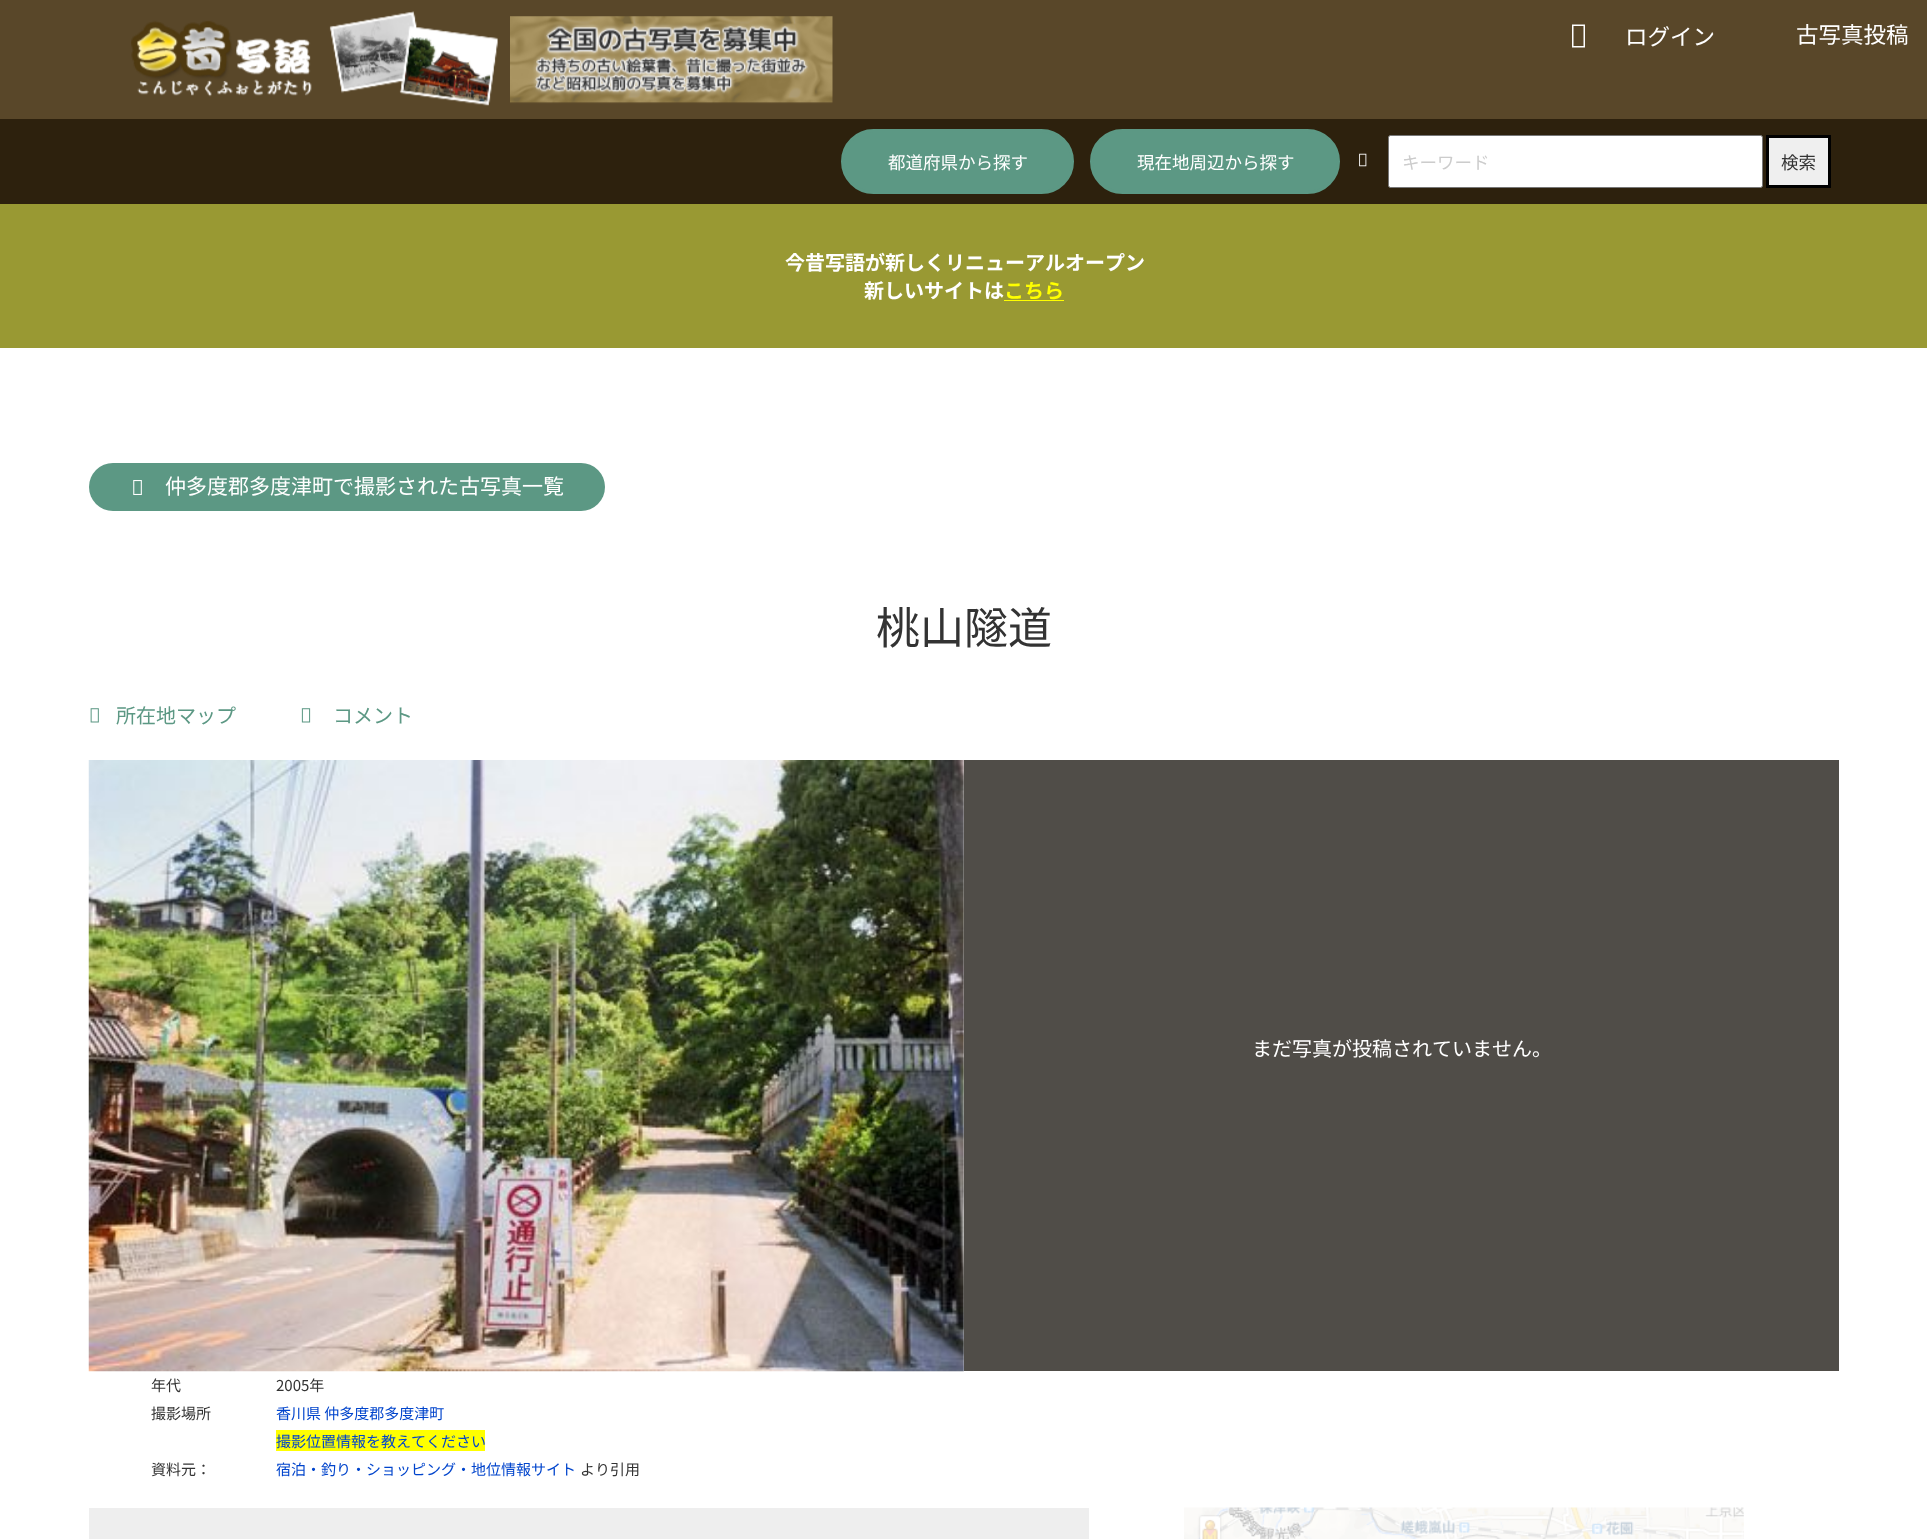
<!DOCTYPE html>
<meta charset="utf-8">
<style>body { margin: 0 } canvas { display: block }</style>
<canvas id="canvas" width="1927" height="1539"></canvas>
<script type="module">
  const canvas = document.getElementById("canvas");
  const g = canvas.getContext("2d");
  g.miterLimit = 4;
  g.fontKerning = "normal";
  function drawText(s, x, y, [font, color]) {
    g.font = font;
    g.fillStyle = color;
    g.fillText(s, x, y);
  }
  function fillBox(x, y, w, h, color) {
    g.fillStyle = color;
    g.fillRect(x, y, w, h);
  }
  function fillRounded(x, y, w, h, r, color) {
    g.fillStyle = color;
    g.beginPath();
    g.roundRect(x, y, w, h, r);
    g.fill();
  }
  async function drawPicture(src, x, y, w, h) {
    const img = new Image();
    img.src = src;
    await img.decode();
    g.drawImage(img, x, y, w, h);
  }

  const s1 = ["22.5px Noto Sans JP", "#FFFFFF"];
  const s2 = ["17.5px Noto Sans JP", "#FFFFFF"];
  const s3 = ["17.5px Noto Sans JP", "#CCCCCC"];
  const s4 = ["17.5px Noto Sans JP", "#333333"];
  const s5 = ["bold 20px Noto Sans JP", "#FFFFFF"];
  const s6 = ["bold 20px Noto Sans JP", "#FFFF00"];
  const s7 = ["21px Noto Sans JP", "#FFFFFF"];
  const s8 = ["44px Noto Sans JP", "#333333"];
  const s9 = ["20px Noto Sans JP", "#5C9884"];
  const s10 = ["20px Noto Sans JP", "#FFFFFF"];
  const s11 = ["15px Noto Sans JP", "#333333"];
  const s12 = ["15px Noto Sans JP", "#0044CC"];

  fillBox(0, 0, 1927, 1539, "#999933");
  fillBox(0, 0, 1927, 119, "#594729");
  await drawPicture("pic1.png", 131, 11, 367, 95);
  await drawPicture("pic2.png", 510, 16, 323, 88);
  g.fillStyle = "#FFFFFF";
  g.beginPath();
  g.moveTo(1572, 47.5);
  g.lineTo(1572, 24.5);
  g.lineTo(1585, 24.5);
  g.lineTo(1585, 47.5);
  g.closePath();
  g.moveTo(1573.5, 46);
  g.lineTo(1583.5, 46);
  g.lineTo(1583.5, 26);
  g.lineTo(1573.5, 26);
  g.closePath();
  g.fill();
  drawText("ログイン", 1625, 45, s1);
  drawText("古写真投稿", 1796, 43, s1);
  fillBox(0, 119, 1927, 85, "#2D210D");
  g.fillStyle = "#5C9884";
  g.beginPath();
  g.roundRect(842.5, 130.5, 230, 62, 31);
  g.fill();
  g.strokeStyle = "#5C9884";
  g.lineWidth = 3;
  g.stroke();
  drawText("都道府県から探す", 888, 169, s2);
  g.fillStyle = "#5C9884";
  g.beginPath();
  g.roundRect(1091.5, 130.5, 247, 62, 31);
  g.fill();
  g.stroke();
  drawText("現在地周辺から探す", 1137, 169, s2);
  await drawPicture("pic3.png", 1359, 153, 8, 14);
  g.beginPath();
  g.roundRect(1388.5, 135.5, 374, 52, 2);
  g.fill();
  g.strokeStyle = "#767676";
  g.lineWidth = 1;
  g.stroke();
  drawText("キーワード", 1402, 169, s3);
  g.fillStyle = "#EFEFEF";
  g.beginPath();
  g.rect(1767.5, 136.5, 62, 50);
  g.fill();
  g.strokeStyle = "#000000";
  g.lineWidth = 3;
  g.stroke();
  drawText("検索", 1781, 169, s4);
  drawText("今昔写語が新しくリニューアルオープン", 785, 270, s5);
  drawText("新しいサイトは", 864, 298, s5);
  drawText("こちら", 1004, 298, s6);
  fillBox(1004, 300, 60, 1, "#FFFF00");
  fillBox(0, 348, 1927, 1191, "#FFFFFF");
  fillRounded(89, 463, 516, 48, 24, "#5C9884");
  await drawPicture("pic4.png", 133, 480, 9, 15);
  drawText("仲多度郡多度津町で撮影された古写真一覧", 165, 494, s7);
  drawText("桃山隧道", 876, 644, s8);
  await drawPicture("pic5.png", 90, 708, 9, 15);
  drawText("所在地マップ", 116, 723, s9);
  await drawPicture("pic6.png", 301, 708, 10, 15);
  drawText("コメント", 333, 723, s9);
  await drawPicture("pic7.png", 88, 760, 876, 612);
  fillBox(964, 760, 875, 611, "#504D48");
  drawText("まだ写真が投稿されていません。", 1252, 1056, s10);
  drawText("年代", 151, 1391, s11);
  drawText("2005年", 276, 1391, s11);
  drawText("撮影場所", 151, 1419, s11);
  drawText("香川県 仲多度郡多度津町", 276, 1419, s12);
  fillBox(276, 1430, 209, 21, "#FFFF00");
  drawText("撮影位置情報を教えてください", 276, 1447, s12);
  drawText("資料元：", 151, 1475, s11);
  drawText("宿泊・釣り・ショッピング・地位情報サイト", 276, 1475, s12);
  drawText("より引用", 580, 1475, s11);
  fillBox(89, 1508, 1000, 31, "#EEEEEE");
  await drawPicture("pic8.png", 1184, 1507, 560, 32);
</script>
